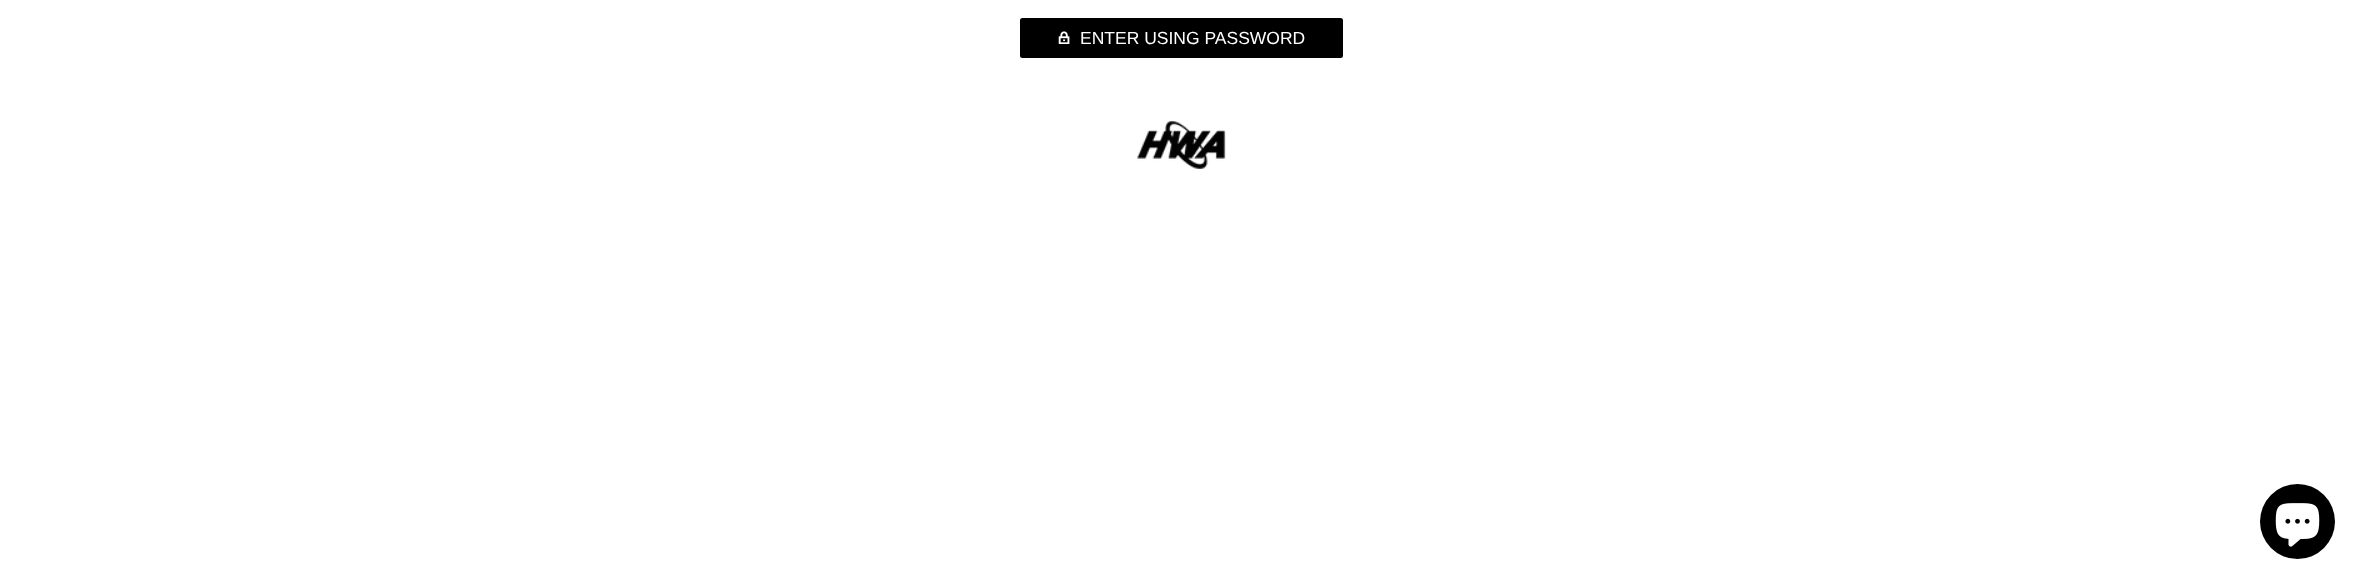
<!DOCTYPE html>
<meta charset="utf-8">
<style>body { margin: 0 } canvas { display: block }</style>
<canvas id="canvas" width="2362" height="585"></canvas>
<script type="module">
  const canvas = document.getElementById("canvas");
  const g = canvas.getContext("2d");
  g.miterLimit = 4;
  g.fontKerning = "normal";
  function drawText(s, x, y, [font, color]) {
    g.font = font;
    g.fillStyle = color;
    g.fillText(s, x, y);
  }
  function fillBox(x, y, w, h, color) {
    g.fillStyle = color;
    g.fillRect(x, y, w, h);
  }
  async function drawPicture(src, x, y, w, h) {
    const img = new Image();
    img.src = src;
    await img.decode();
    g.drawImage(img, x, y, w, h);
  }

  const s1 = ["17.5px Liberation Sans", "#FFFFFF"];

  fillBox(0, 0, 2362, 585, "#FFFFFF");
  g.fillStyle = "#000000";
  g.beginPath();
  g.roundRect(1021.5, 19.5, 320, 37, 1);
  g.fill();
  g.strokeStyle = "#000000";
  g.lineWidth = 3;
  g.stroke();
  await drawPicture("pic1.png", 1058, 31, 12, 13);
  drawText("ENTER USING PASSWORD", 1080, 44, s1);
  await drawPicture("pic2.png", 1137, 120, 89, 50);
  g.fillStyle = "#000000";
  g.beginPath();
  g.arc(2297.5, 521.5, 37.5, 0, Math.PI * 2);
  g.fill();
  await drawPicture("pic3.png", 2275, 503, 45, 44);
</script>
